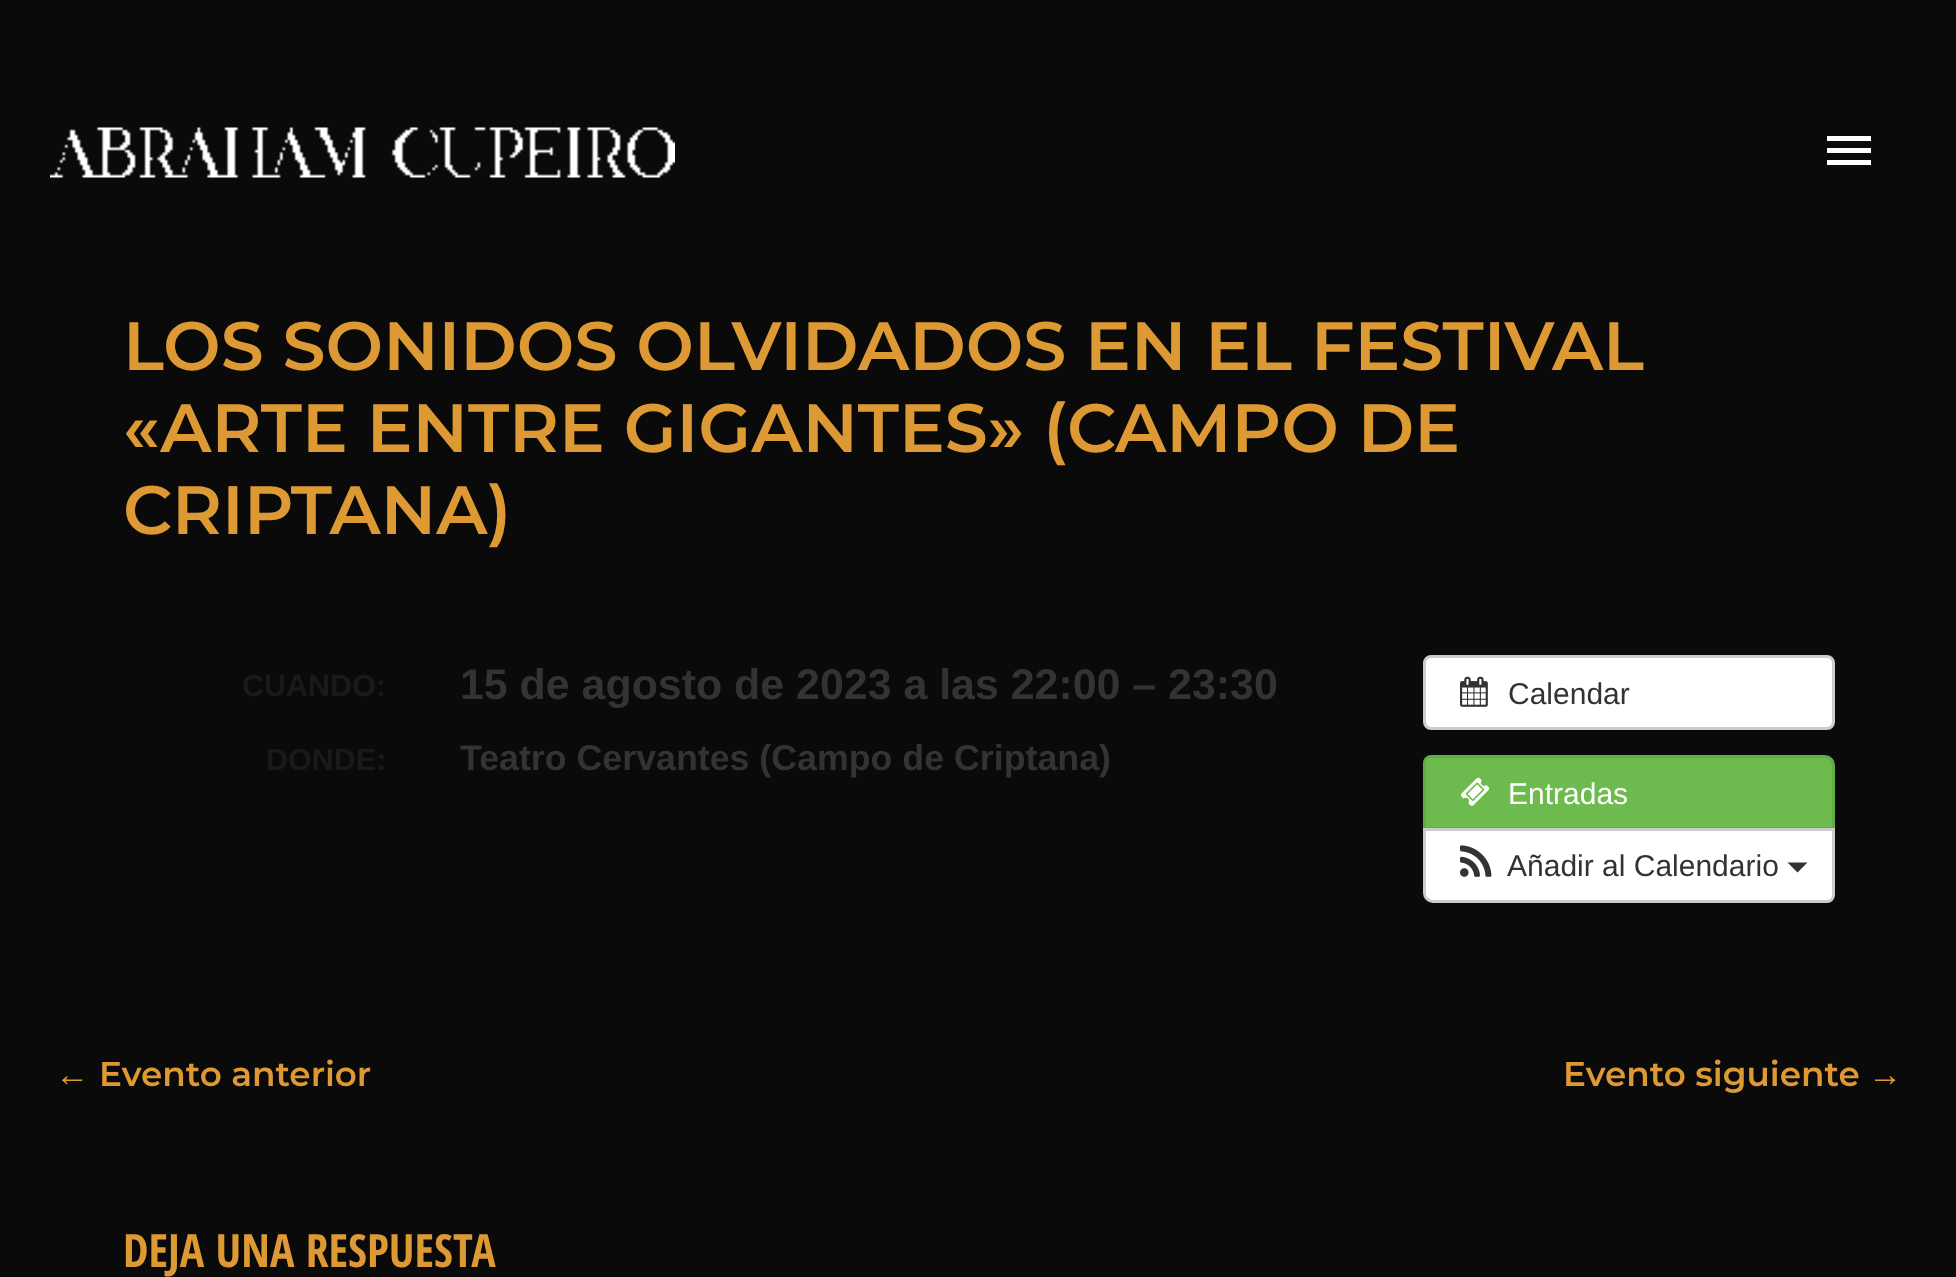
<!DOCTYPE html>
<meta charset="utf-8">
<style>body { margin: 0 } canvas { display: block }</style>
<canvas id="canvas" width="1956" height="1277"></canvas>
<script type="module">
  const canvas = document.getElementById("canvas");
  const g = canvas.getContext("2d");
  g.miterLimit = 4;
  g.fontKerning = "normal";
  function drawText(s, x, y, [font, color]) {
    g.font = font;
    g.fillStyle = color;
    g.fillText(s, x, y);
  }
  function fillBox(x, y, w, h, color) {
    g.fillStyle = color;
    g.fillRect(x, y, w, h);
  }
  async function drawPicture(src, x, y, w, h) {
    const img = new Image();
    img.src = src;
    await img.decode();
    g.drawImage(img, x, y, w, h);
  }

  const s1 = ["600 68.4px Montserrat", "#DD9933"];
  const s2 = ["bold 30.5px Liberation Sans", "#1B1A1A"];
  const s3 = ["bold 42.9px Liberation Sans", "#333333"];
  const s4 = ["bold 35.75px Liberation Sans", "#333333"];
  const s5 = ["30px Liberation Sans", "#333333"];
  const s6 = ["30px Liberation Sans", "#FFFFFF"];
  const s7 = ["bold 34.25px Liberation Sans", "#DD9933"];
  const s8 = ["600 34.25px Montserrat", "#DD9933"];
  const s9 = ["bold 45.75px Open Sans Condensed", "#DD9933"];

  fillBox(0, 0, 1956, 1277, "#0A0A0A");
  await drawPicture("pic1.png", 50, 127, 625, 51);
  g.fillStyle = "#FFFFFF";
  g.beginPath();
  g.moveTo(1827, 136);
  g.lineTo(1871, 136);
  g.lineTo(1871, 141);
  g.lineTo(1827, 141);
  g.closePath();
  g.moveTo(1827, 153);
  g.lineTo(1827, 148);
  g.lineTo(1871, 148);
  g.lineTo(1871, 153);
  g.closePath();
  g.moveTo(1827, 165);
  g.lineTo(1827, 160);
  g.lineTo(1871, 160);
  g.lineTo(1871, 165);
  g.closePath();
  g.fill();
  drawText("LOS SONIDOS OLVIDADOS EN EL FESTIVAL", 123, 370, s1);
  drawText("«ARTE ENTRE GIGANTES» (CAMPO DE", 123, 452, s1);
  drawText("CRIPTANA)", 123, 534, s1);
  drawText("CUANDO:", 242, 696, s2);
  drawText("15 de agosto de 2023 a las 22:00 – 23:30", 460, 699, s3);
  drawText("DONDE:", 266, 770, s2);
  drawText("Teatro Cervantes (Campo de Criptana)", 460, 770, s4);
  g.fillStyle = "#FFFFFF";
  g.beginPath();
  g.roundRect(1424.5, 656.5, 409, 72, 6.5);
  g.fill();
  g.strokeStyle = "#CCCCCC";
  g.lineWidth = 3;
  g.stroke();
  await drawPicture("pic2.png", 1460, 676, 28, 31);
  drawText("Calendar", 1508, 704, s5);
  g.fillStyle = "#6DBB4F";
  g.beginPath();
  g.roundRect(1424.5, 756.5, 409, 72, [6.5, 8.5, 0, 0]);
  g.fill();
  g.strokeStyle = "#61AD43";
  g.stroke();
  await drawPicture("pic3.png", 1460, 777, 30, 29);
  drawText("Entradas", 1508, 804, s6);
  g.beginPath();
  g.roundRect(1424.5, 829.5, 409, 72, [0, 0, 6.5, 8.5]);
  g.fill();
  g.strokeStyle = "#CCCCCC";
  g.stroke();
  await drawPicture("pic4.png", 1460, 845, 32, 32);
  drawText("Añadir al Calendario", 1507, 876, s5);
  g.beginPath();
  g.moveTo(1787.5, 862.5);
  g.lineTo(1807.5, 862.5);
  g.lineTo(1797.5, 872.5);
  g.closePath();
  g.fill();
  drawText("←", 55, 1086, s7);
  drawText("Evento anterior", 99, 1086, s8);
  drawText("Evento siguiente", 1563, 1086, s8);
  drawText("→", 1868, 1086, s7);
  drawText("DEJA UNA RESPUESTA", 123, 1267, s9);
</script>
